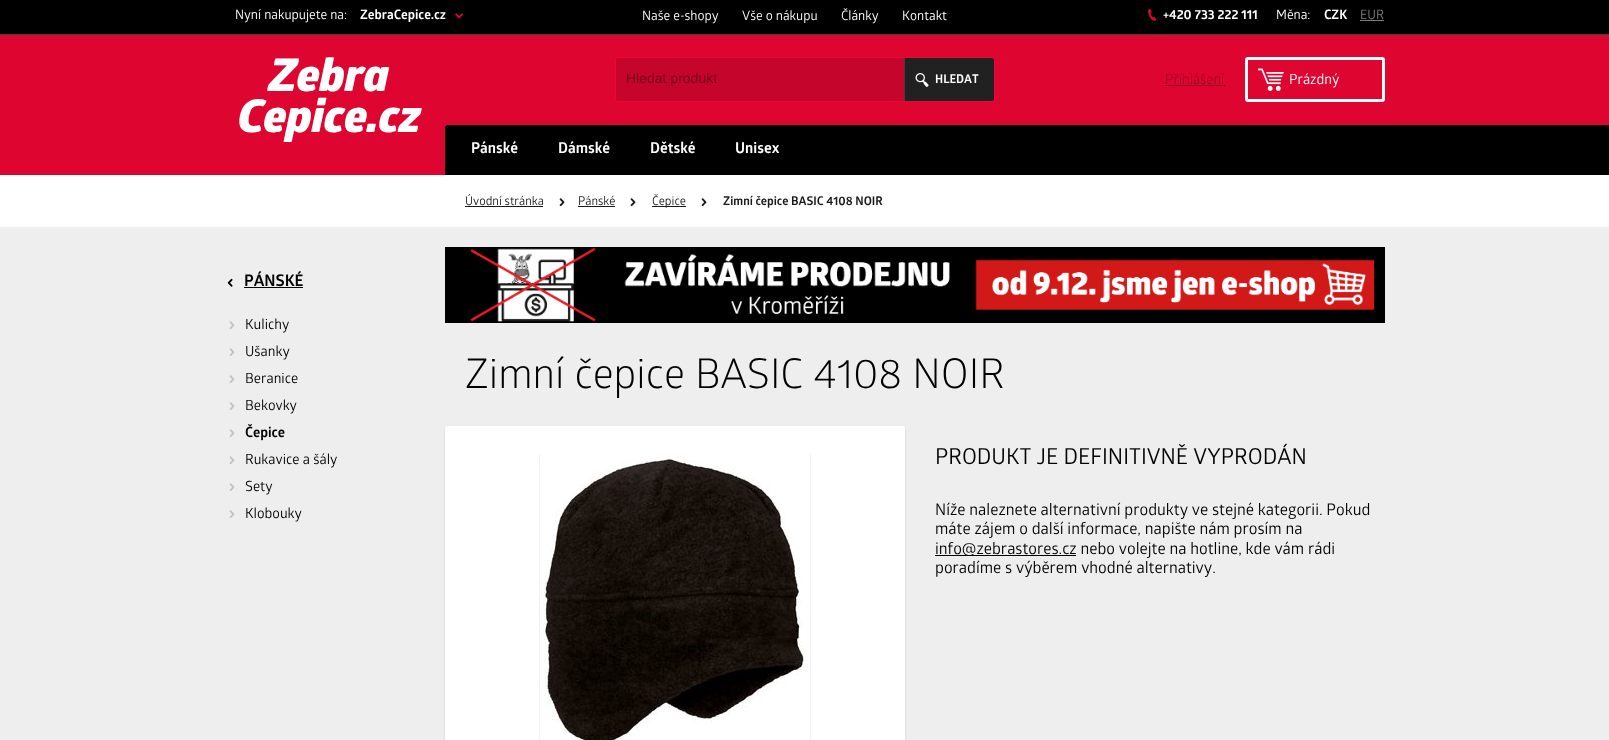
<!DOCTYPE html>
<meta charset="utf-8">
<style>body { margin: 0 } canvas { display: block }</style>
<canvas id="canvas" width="1609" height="740"></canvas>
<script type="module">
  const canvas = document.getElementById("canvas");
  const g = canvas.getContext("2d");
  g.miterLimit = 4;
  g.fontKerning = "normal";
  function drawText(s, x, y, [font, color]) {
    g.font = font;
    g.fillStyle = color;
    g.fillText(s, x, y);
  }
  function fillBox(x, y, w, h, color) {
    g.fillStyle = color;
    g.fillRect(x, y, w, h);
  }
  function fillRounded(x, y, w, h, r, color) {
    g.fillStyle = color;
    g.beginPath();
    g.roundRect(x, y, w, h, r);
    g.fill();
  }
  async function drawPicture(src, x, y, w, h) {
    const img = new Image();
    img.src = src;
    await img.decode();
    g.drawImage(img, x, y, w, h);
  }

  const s1 = ["13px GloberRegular", "#FFFFFF"];
  const s2 = ["13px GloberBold", "#FFFFFF"];
  const s3 = ["13px GloberRegular", "#7E7E7E"];
  const s4 = ["45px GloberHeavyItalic", "#FFFFFF"];
  const s5 = ["14px Liberation Sans", "#730017"];
  const s6 = ["12px GloberBold", "#FFFFFF"];
  const s7 = ["14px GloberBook", "#8C001C"];
  const s8 = ["14px GloberRegular", "#FFFFFF"];
  const s9 = ["15px GloberBold", "#FFFFFF"];
  const s10 = ["12px GloberRegular", "#1A1A1A"];
  const s11 = ["12px GloberBold", "#1A1A1A"];
  const s12 = ["16px GloberBold", "#000000"];
  const s13 = ["14px GloberRegular", "#000000"];
  const s14 = ["14px GloberBold", "#000000"];
  const s15 = ["41px GloberBook", "#000000"];
  const s16 = ["22px GloberRegular", "#000000"];
  const s17 = ["16px GloberRegular", "#000000"];

  fillBox(0, 0, 1609, 740, "#FFFFFF");
  fillBox(0, 0, 1609, 34, "#000000");
  fillBox(0, 34, 1609, 1, "#404040");
  drawText("Nyní nakupujete na:", 235, 19, s1);
  drawText("ZebraCepice.cz", 360, 19, s2);
  await drawPicture("pic1.png", 455, 13, 8, 6);
  await drawPicture("pic2.png", 1148, 8, 9, 13);
  drawText("+420 733 222 111", 1163, 19, s2);
  drawText("Měna:", 1276, 19, s1);
  drawText("CZK", 1324, 19, s2);
  drawText("EUR", 1360, 19, s3);
  fillBox(1360, 20, 24, 1, "#7E7E7E");
  fillBox(0, 35, 1609, 140, "#DE0631");
  drawText("Naše e-shopy", 642, 20, s1);
  drawText("Vše o nákupu", 742, 20, s1);
  drawText("Články", 841, 20, s1);
  drawText("Kontakt", 902, 20, s1);
  drawText("Zebra", 269, 91, s4);
  drawText("Cepice.cz", 238, 132, s4);
  g.fillStyle = "#C5052C";
  g.beginPath();
  g.roundRect(615.5, 57.5, 379, 44, 2.5);
  g.fill();
  g.strokeStyle = "#ED0634";
  g.stroke();
  drawText("Hledat produkt", 626, 83, s5);
  g.fillStyle = "#222121";
  g.beginPath();
  g.roundRect(904, 58, 90, 43, [0, 3, 3, 0]);
  g.fill();
  await drawPicture("pic3.png", 915, 73, 14, 14);
  fillBox(904, 58, 1, 43, "#404040");
  drawText("HLEDAT", 935, 83, s6);
  drawText("Příhlášení", 1165, 84, s7);
  fillBox(1165, 85, 60, 1, "#8C001C");
  g.beginPath();
  g.roundRect(1246.5, 58.5, 137, 42, 1.5);
  g.strokeStyle = "#FFFFFF";
  g.lineWidth = 3;
  g.stroke();
  await drawPicture("pic4.png", 1258, 68, 26, 23);
  drawText("Prázdný", 1289, 84, s8);
  g.fillStyle = "#000000";
  g.beginPath();
  g.roundRect(445, 125, 930, 50, [3, 0, 0, 0]);
  g.fill();
  drawText("Pánské", 471, 153, s9);
  drawText("Dámské", 558, 153, s9);
  drawText("Dětské", 650, 153, s9);
  drawText("Unisex", 735, 153, s9);
  fillBox(1375, 125, 234, 50, "#000000");
  drawText("Úvodní stránka", 465, 205, s10);
  fillBox(465, 206, 78, 1, "#1A1A1A");
  await drawPicture("pic5.png", 559, 198, 6, 9);
  drawText("Pánské", 578, 205, s10);
  fillBox(578, 206, 37, 1, "#1A1A1A");
  await drawPicture("pic5.png", 630, 198, 6, 9);
  fillBox(652, 206, 34, 1, "#1A1A1A");
  drawText("Čepice", 652, 205, s10);
  await drawPicture("pic5.png", 701, 198, 6, 9);
  drawText("Zimní čepice BASIC 4108 NOIR", 723, 205, s11);
  fillBox(0, 227, 1609, 513, "#EEEEEE");
  await drawPicture("pic6.png", 227, 278, 6, 9);
  drawText("PÁNSKÉ", 244, 286, s12);
  fillBox(244, 287, 59, 1, "#000000");
  await drawPicture("pic7.png", 229, 321, 6, 8);
  drawText("Kulichy", 245, 329, s13);
  await drawPicture("pic7.png", 229, 348, 6, 8);
  drawText("Ušanky", 245, 356, s13);
  await drawPicture("pic7.png", 229, 375, 6, 8);
  drawText("Beranice", 245, 383, s13);
  await drawPicture("pic7.png", 229, 402, 6, 8);
  drawText("Bekovky", 245, 410, s13);
  await drawPicture("pic7.png", 229, 429, 6, 8);
  drawText("Čepice", 245, 437, s14);
  await drawPicture("pic7.png", 229, 456, 6, 8);
  drawText("Rukavice a šály", 245, 464, s13);
  await drawPicture("pic7.png", 229, 483, 6, 8);
  drawText("Sety", 245, 491, s13);
  await drawPicture("pic7.png", 229, 510, 6, 8);
  drawText("Klobouky", 245, 518, s13);
  await drawPicture("pic8.png", 445, 247, 940, 76);
  drawText("Zimní čepice BASIC 4108 NOIR", 465, 388, s15);
  g.fillStyle = "#CDCDCD";
  g.filter = "blur(1px)";
  g.beginPath();
  g.roundRect(445, 428, 460, 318, 3);
  g.fill();
  g.filter = "none";
  fillRounded(445, 426, 460, 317, 3, "#FFFFFF");
  await drawPicture("pic9.png", 539, 454, 272, 286);
  drawText("PRODUKT JE DEFINITIVNĚ VYPRODÁN", 935, 464, s16);
  drawText("Níže naleznete alternativní produkty ve stejné kategorii. Pokud", 935, 515, s17);
  drawText("máte zájem o další informace, napište nám prosím na", 935, 534, s17);
  fillBox(935, 555, 141, 1, "#000000");
  drawText("info@zebrastores.cz nebo volejte na hotline, kde vám rádi", 935, 554, s17);
  drawText("poradíme s výběrem vhodné alternativy.", 935, 573, s17);
</script>
